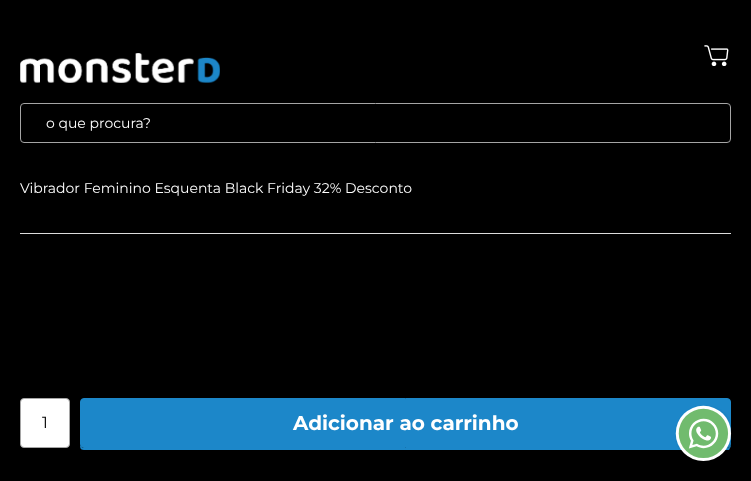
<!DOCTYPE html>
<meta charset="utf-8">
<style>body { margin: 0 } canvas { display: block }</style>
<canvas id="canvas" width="751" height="481"></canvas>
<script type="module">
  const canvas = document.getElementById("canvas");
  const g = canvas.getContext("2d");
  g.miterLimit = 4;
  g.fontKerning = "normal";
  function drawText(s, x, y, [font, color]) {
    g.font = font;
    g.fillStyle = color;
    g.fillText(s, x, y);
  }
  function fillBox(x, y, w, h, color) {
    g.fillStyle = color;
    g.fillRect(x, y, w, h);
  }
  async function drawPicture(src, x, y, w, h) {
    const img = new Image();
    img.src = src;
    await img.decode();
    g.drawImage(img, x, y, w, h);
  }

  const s1 = ["14px Montserrat", "#FFFFFF"];
  const s2 = ["16px Montserrat", "#000000"];
  const s3 = ["bold 20px Montserrat", "#FFFFFF"];

  fillBox(0, 0, 751, 481, "#000000");
  await drawPicture("pic1.png", 20, 53, 200, 30);
  await drawPicture("pic2.png", 704, 45, 25, 21);
  g.beginPath();
  g.roundRect(20.5, 103.5, 710, 39, 3.5);
  g.strokeStyle = "#A5A5A5";
  g.stroke();
  drawText("o que procura?", 46, 128, s1);
  fillBox(20, 233, 711, 1, "#DCDCDC");
  drawText("Vibrador Feminino Esquenta Black Friday 32% Desconto", 20, 193, s1);
  g.beginPath();
  g.roundRect(20.5, 398.5, 49, 49, 3.5);
  g.fill();
  g.stroke();
  drawText("1", 42, 428, s2);
  g.fillStyle = "#1C87C9";
  g.beginPath();
  g.moveTo(80, 444);
  g.bezierCurveTo(80, 447, 80, 450, 84, 450);
  g.lineTo(729, 450);
  g.lineTo(730, 448);
  g.bezierCurveTo(731, 447, 731, 445, 731, 444);
  g.bezierCurveTo(731, 446, 729, 448, 727, 448);
  g.lineTo(84, 448);
  g.bezierCurveTo(82, 448, 80, 446, 80, 444);
  g.closePath();
  g.fill();
  g.beginPath();
  g.roundRect(80.5, 398.5, 650, 49, 3.5);
  g.fill();
  g.strokeStyle = "#1C87C9";
  g.stroke();
  drawText("Adicionar ao carrinho", 293, 430, s3);
  await drawPicture("pic3.png", 675, 405, 57, 56);
</script>
